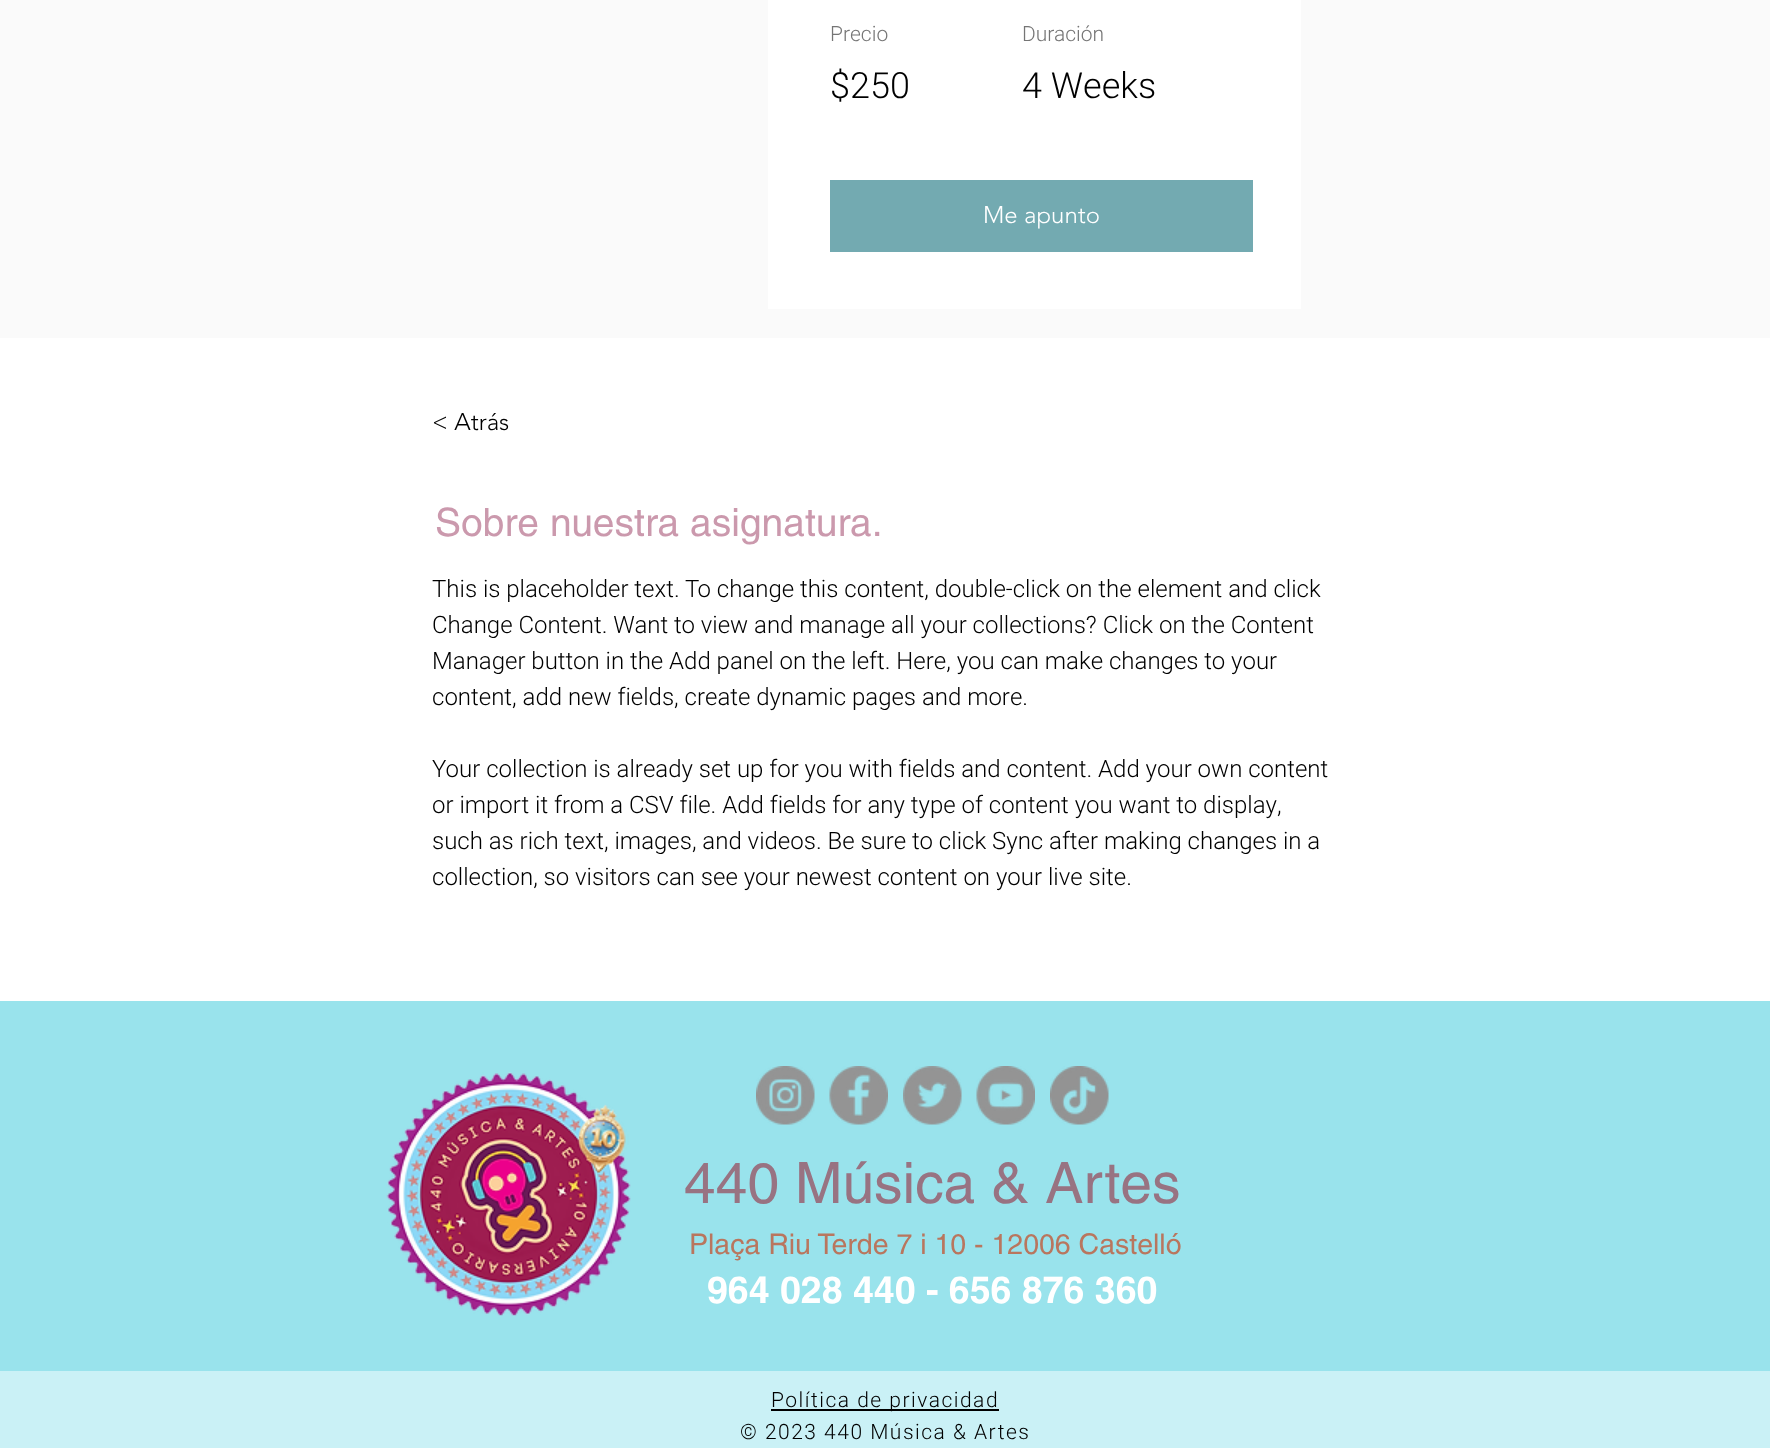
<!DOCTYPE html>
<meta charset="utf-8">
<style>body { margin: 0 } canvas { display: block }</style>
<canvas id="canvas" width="1770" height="1449"></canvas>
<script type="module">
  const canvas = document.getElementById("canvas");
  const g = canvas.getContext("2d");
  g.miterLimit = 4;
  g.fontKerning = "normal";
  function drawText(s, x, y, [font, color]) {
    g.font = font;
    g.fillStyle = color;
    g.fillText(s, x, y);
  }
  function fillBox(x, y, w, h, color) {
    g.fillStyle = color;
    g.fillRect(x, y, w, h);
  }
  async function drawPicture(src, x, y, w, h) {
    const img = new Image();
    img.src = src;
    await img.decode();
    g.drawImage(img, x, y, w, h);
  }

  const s1 = ["300 21px Heebo", "#757575"];
  const s2 = ["300 36px Heebo", "#000000"];
  const s3 = ["300 24px 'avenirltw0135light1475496'", "#FFFFFF"];
  const s4 = ["300 24px 'avenirltw0135light1475496'", "#000000"];
  const s5 = ["39px helvetica", "#CB99AD"];
  const s6 = ["300 24px Heebo", "#000000"];
  const s7 = ["57px helvetica", "#987382"];
  const s8 = ["28.5px helvetica", "#B9765E"];
  const s9 = ["bold 37.5px helvetica", "#FFFFFF"];
  const s10 = ["300 21px Heebo", "#000000"];

  fillBox(0, 0, 1770, 1449, "#FFFFFF");
  fillBox(0, 0, 1770, 338, "#FAFAFA");
  fillBox(768, 0, 533, 309, "#FFFFFF");
  drawText("Precio", 830, 41, s1);
  drawText("Duración", 1022, 41, s1);
  drawText("$250", 830, 98, s2);
  drawText("4 Weeks", 1022, 98, s2);
  fillBox(830, 180, 423, 72, "#73AAB1");
  drawText("Me apunto", 983, 223, s3);
  drawText("< Atrás", 432, 430, s4);
  drawText("Sobre nuestra asignatura.", 435, 536, s5);
  drawText("This is placeholder text. To change this content, double-click on the element and click", 432, 597, s6);
  drawText("Change Content. Want to view and manage all your collections? Click on the Content", 432, 633, s6);
  drawText("Manager button in the Add panel on the left. Here, you can make changes to your", 432, 669, s6);
  drawText("content, add new fields, create dynamic pages and more.", 432, 705, s6);
  drawText("Your collection is already set up for you with fields and content. Add your own content", 432, 777, s6);
  drawText("or import it from a CSV file. Add fields for any type of content you want to display,", 432, 813, s6);
  drawText("such as rich text, images, and videos. Be sure to click Sync after making changes in a", 432, 849, s6);
  drawText("collection, so visitors can see your newest content on your live site.", 432, 885, s6);
  fillBox(0, 1001, 1770, 370, "#99E3EC");
  await drawPicture("pic1.png", 386, 1072, 245, 245);
  await drawPicture("pic2.png", 756, 1066, 59, 59);
  await drawPicture("pic3.png", 829, 1066, 59, 59);
  await drawPicture("pic4.png", 903, 1066, 59, 59);
  await drawPicture("pic5.png", 976, 1066, 59, 59);
  await drawPicture("pic6.png", 1050, 1066, 59, 59);
  drawText("440 Música & Artes", 684, 1203, s7);
  drawText("Plaça Riu Terde 7 i 10 - 12006 Castelló", 689, 1254, s8);
  drawText("964 028 440 - 656 876 360", 707, 1303, s9);
  fillBox(0, 1371, 1770, 77, "#CAF1F6");
  fillBox(771, 1409, 228, 2, "#000000");
  g.letterSpacing = "1.5px";
  drawText("Política de privacidad", 771, 1407, s10);
  drawText("© 2023 440 Música & Artes", 740, 1439, s10);
</script>
